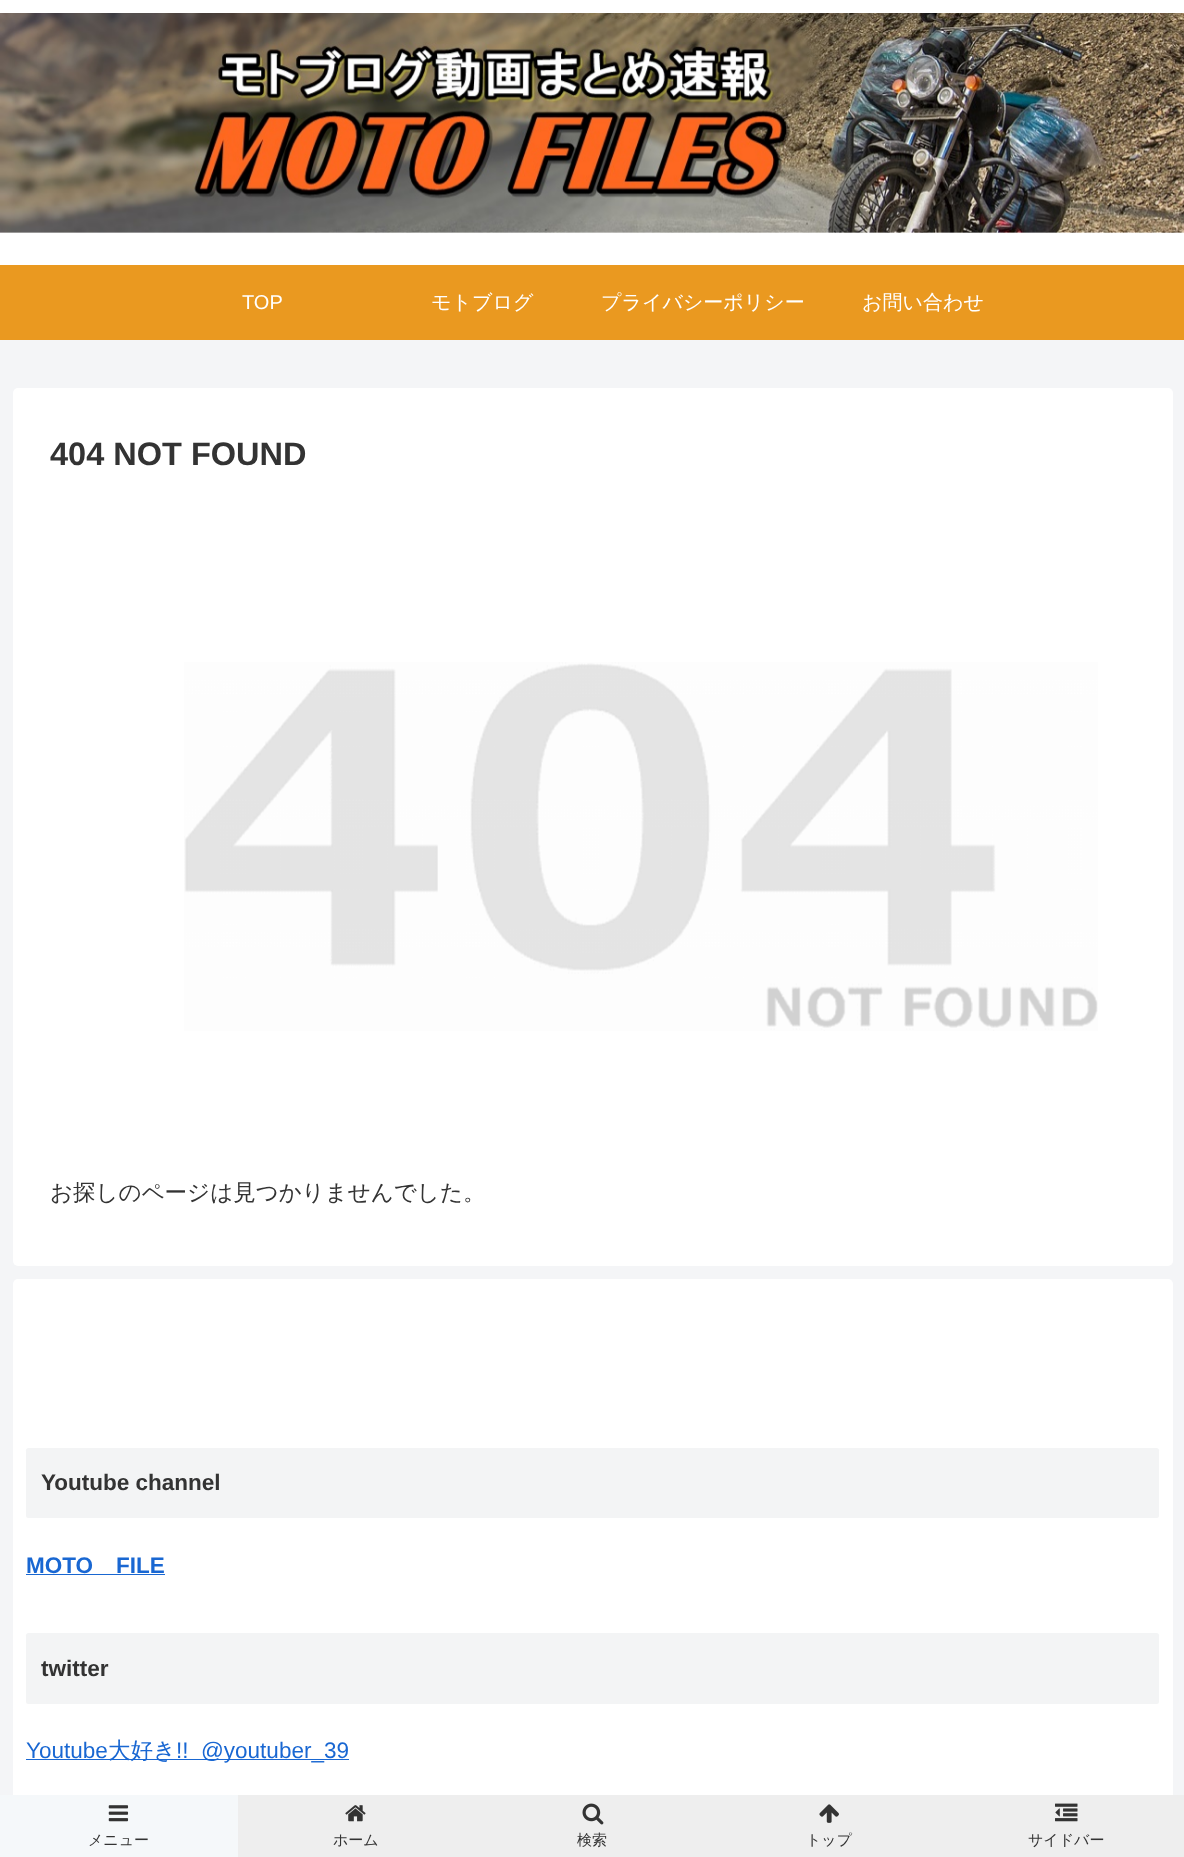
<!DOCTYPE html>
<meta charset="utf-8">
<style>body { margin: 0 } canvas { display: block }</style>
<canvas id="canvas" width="1184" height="1857"></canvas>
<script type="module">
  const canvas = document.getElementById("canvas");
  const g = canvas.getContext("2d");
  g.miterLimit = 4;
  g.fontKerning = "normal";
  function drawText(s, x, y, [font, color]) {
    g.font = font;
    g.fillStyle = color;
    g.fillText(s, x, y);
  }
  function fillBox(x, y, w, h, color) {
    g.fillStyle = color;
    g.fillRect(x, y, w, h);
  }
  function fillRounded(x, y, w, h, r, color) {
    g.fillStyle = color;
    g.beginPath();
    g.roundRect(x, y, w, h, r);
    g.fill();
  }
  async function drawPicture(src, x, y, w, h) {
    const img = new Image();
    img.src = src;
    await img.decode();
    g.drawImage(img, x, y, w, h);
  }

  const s1 = ["20px Liberation Sans", "#FFFFFF"];
  const s2 = ["500 20px WenQuanYi Zen Hei", "#FFFFFF"];
  const s3 = ["bold 32.5px Liberation Sans", "#333333"];
  const s4 = ["500 22.5px WenQuanYi Zen Hei", "#333333"];
  const s5 = ["bold 22.5px Liberation Sans", "#333333"];
  const s6 = ["bold 22.5px Liberation Sans", "#1967D2"];
  const s7 = ["22.5px Liberation Sans", "#1967D2"];
  const s8 = ["500 22.5px WenQuanYi Zen Hei", "#1967D2"];
  const s9 = ["500 15px WenQuanYi Zen Hei", "#333333"];

  fillBox(0, 0, 1184, 1857, "#F4F5F7");
  fillBox(0, 0, 1184, 265, "#FFFFFF");
  await drawPicture("pic1.png", 0, 13, 1184, 220);
  fillBox(0, 265, 1184, 75, "#EA9920");
  drawText("TOP", 242, 309, s1);
  drawText("モトブログ", 431, 309, s2);
  drawText("プライバシーポリシー", 601, 309, s2);
  drawText("お問い合わせ", 862, 309, s2);
  fillRounded(13, 388, 1160, 878, 5, "#FFFFFF");
  drawText("404 NOT FOUND", 50, 465, s3);
  await drawPicture("pic2.png", 184, 662, 914, 369);
  drawText("お探しのページは見つかりませんでした。", 50, 1200, s4);
  fillRounded(13, 1279, 1160, 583, 5, "#FFFFFF");
  fillRounded(26, 1448, 1133, 70, 2.5, "#F3F4F5");
  drawText("Youtube channel", 41, 1490, s5);
  drawText("MOTO", 26, 1573, s6);
  fillBox(26, 1574, 139, 1, "#1967D2");
  drawText("FILE", 116, 1573, s6);
  fillRounded(26, 1633, 1133, 71, 2.5, "#F3F4F5");
  drawText("twitter", 41, 1676, s5);
  drawText("Youtube", 26, 1758, s7);
  fillBox(26, 1759, 323, 1, "#1967D2");
  drawText("大好き", 108, 1758, s8);
  drawText("!!  @youtuber_39", 176, 1758, s7);
  fillBox(238, 1795, 946, 62, "#EEEEEE");
  fillBox(0, 1795, 238, 62, "#F5F8FA");
  await drawPicture("pic3.png", 108, 1805, 21, 17);
  drawText("メニュー", 88, 1845, s9);
  await drawPicture("pic4.png", 345, 1805, 21, 17);
  drawText("ホーム", 333, 1845, s9);
  await drawPicture("pic5.png", 582, 1803, 22, 22);
  drawText("検索", 577, 1845, s9);
  await drawPicture("pic6.png", 819, 1804, 20, 19);
  drawText("トップ", 806, 1845, s9);
  await drawPicture("pic7.png", 1055, 1803, 23, 19);
  drawText("サイドバー", 1028, 1845, s9);
</script>
